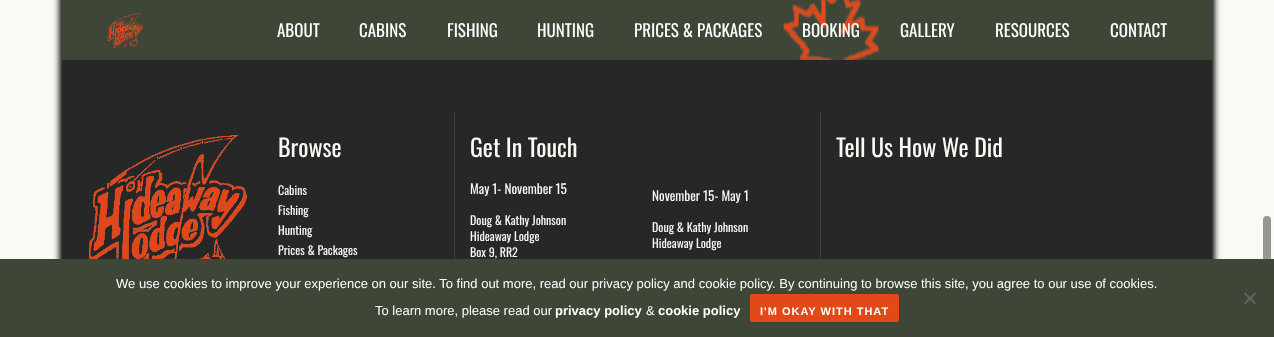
<!DOCTYPE html>
<meta charset="utf-8">
<style>body { margin: 0 } canvas { display: block }</style>
<canvas id="canvas" width="1274" height="337"></canvas>
<script type="module">
  const canvas = document.getElementById("canvas");
  const g = canvas.getContext("2d");
  g.miterLimit = 4;
  g.fontKerning = "normal";
  function drawText(s, x, y, [font, color]) {
    g.font = font;
    g.fillStyle = color;
    g.fillText(s, x, y);
  }
  function fillBox(x, y, w, h, color) {
    g.fillStyle = color;
    g.fillRect(x, y, w, h);
  }
  function fillRounded(x, y, w, h, r, color) {
    g.fillStyle = color;
    g.beginPath();
    g.roundRect(x, y, w, h, r);
    g.fill();
  }
  async function drawPicture(src, x, y, w, h) {
    const img = new Image();
    img.src = src;
    await img.decode();
    g.drawImage(img, x, y, w, h);
  }

  const s1 = ["17px Oswald", "#FFFFFF"];
  const s2 = ["24px Oswald", "#FAFAF5"];
  const s3 = ["12px Oswald", "#FAFAF5"];
  const s4 = ["13.25px Oswald", "#FAFAF5"];
  const s5 = ["13px Liberation Sans", "#FFFFFF"];
  const s6 = ["bold 13px Liberation Sans", "#FFFFFF"];
  const s7 = ["bold 11px Liberation Sans", "#FFFFFF"];

  fillBox(0, 0, 1274, 337, "#FAFAF5");
  g.fillStyle = "#000000";
  g.filter = "blur(3.5px)";
  g.beginPath();
  g.rect(60, -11, 1150, 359);
  g.fill();
  g.filter = "none";
  g.filter = "blur(3.5px)";
  g.beginPath();
  g.rect(64, -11, 1150, 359);
  g.fill();
  g.filter = "none";
  fillBox(62, 0, 1150, 60, "#3E4638");
  await drawPicture("pic1.png", 107, 13, 36, 35);
  drawText("ABOUT", 277, 37, s1);
  drawText("CABINS", 359, 37, s1);
  drawText("FISHING", 447, 37, s1);
  drawText("HUNTING", 537, 37, s1);
  drawText("PRICES & PACKAGES", 634, 37, s1);
  await drawPicture("pic2.png", 783, 0, 97, 60);
  drawText("BOOKING", 802, 37, s1);
  drawText("GALLERY", 900, 37, s1);
  drawText("RESOURCES", 995, 37, s1);
  drawText("CONTACT", 1110, 37, s1);
  fillBox(63, 60, 1148, 199, "#272727");
  await drawPicture("pic3.png", 89, 135, 158, 124);
  drawText("Browse", 278, 157, s2);
  drawText("Cabins", 278, 195, s3);
  drawText("Fishing", 278, 215, s3);
  drawText("Hunting", 278, 235, s3);
  drawText("Prices & Packages", 278, 255, s3);
  fillBox(454, 112, 1, 147, "#3D3D3D");
  drawText("Get In Touch", 470, 157, s2);
  drawText("May 1- November 15", 470, 194, s4);
  drawText("Doug & Kathy Johnson", 470, 225, s3);
  drawText("Hideaway Lodge", 470, 241, s3);
  drawText("Box 9, RR2", 470, 257, s3);
  drawText("November 15- May 1", 652, 201, s4);
  drawText("Doug & Kathy Johnson", 652, 232, s3);
  drawText("Hideaway Lodge", 652, 248, s3);
  fillBox(820, 112, 1, 147, "#3D3D3D");
  drawText("Tell Us How We Did", 836, 157, s2);
  fillRounded(1263, 216, 8, 88, 4, "#969693");
  fillBox(0, 259, 1274, 78, "#3E4638");
  drawText("We use cookies to improve your experience on our site. To find out more, read our privacy policy and cookie policy. By continuing to browse this site, you agree to our use of cookies.", 116, 288, s5);
  g.fillStyle = "#5F635C";
  g.beginPath();
  g.moveTo(1254.5, 292.5);
  g.lineTo(1256, 294);
  g.lineTo(1245.5, 304.5);
  g.lineTo(1244, 303);
  g.closePath();
  g.fill();
  g.beginPath();
  g.moveTo(1244, 294);
  g.lineTo(1245.5, 292.5);
  g.lineTo(1256, 303);
  g.lineTo(1254.5, 304.5);
  g.closePath();
  g.fill();
  drawText("To learn more, please read our", 375, 315, s5);
  drawText("privacy policy", 555, 315, s6);
  drawText("&", 646, 315, s5);
  drawText("cookie policy", 658, 315, s6);
  fillRounded(750, 294, 149, 28, 2, "#E34819");
  g.letterSpacing = "1px";
  drawText("I'M OKAY WITH THAT", 760, 315, s7);
</script>
